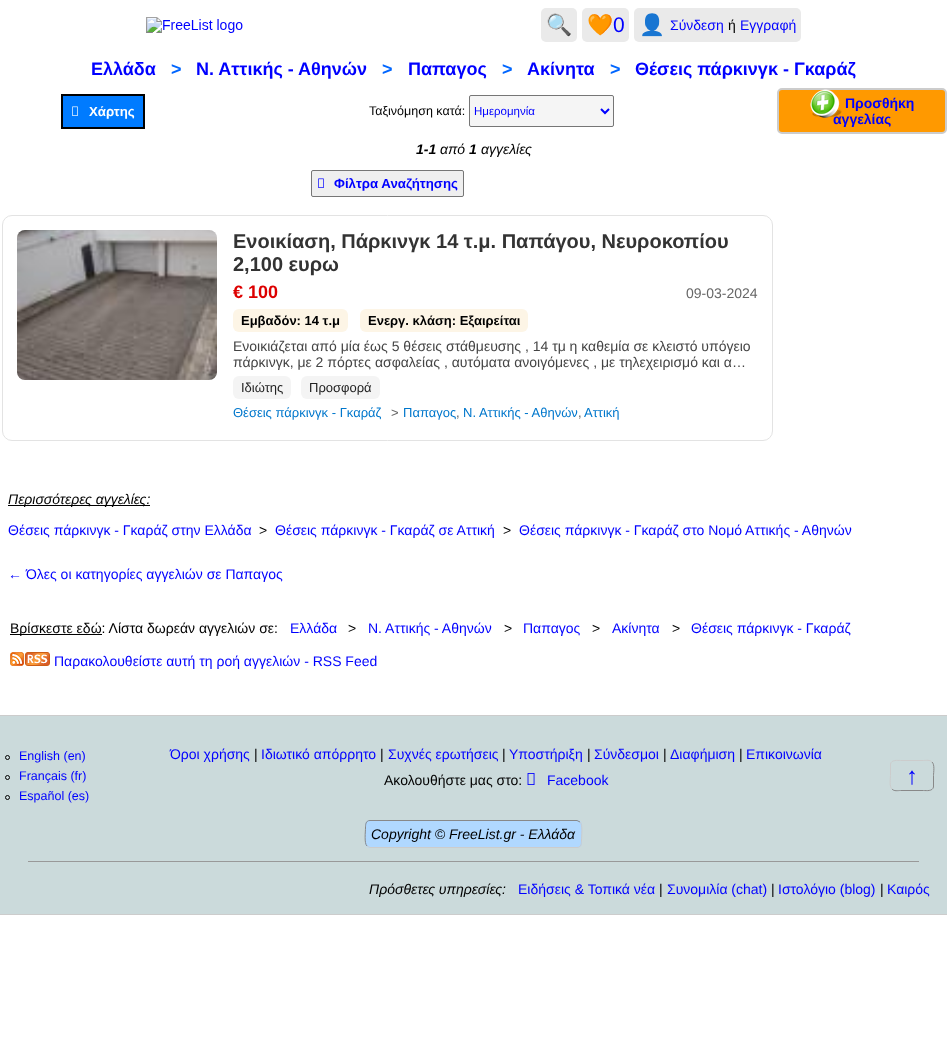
<!DOCTYPE html>
<meta charset="utf-8">
<style>body { margin: 0 } canvas { display: block }</style>
<canvas id="canvas" width="947" height="1046"></canvas>
<script type="module">
  const canvas = document.getElementById("canvas");
  const g = canvas.getContext("2d");
  g.miterLimit = 4;
  g.fontKerning = "normal";
  function drawText(s, x, y, [font, color]) {
    g.font = font;
    g.fillStyle = color;
    g.fillText(s, x, y);
  }
  function fillBox(x, y, w, h, color) {
    g.fillStyle = color;
    g.fillRect(x, y, w, h);
  }
  function fillRounded(x, y, w, h, r, color) {
    g.fillStyle = color;
    g.beginPath();
    g.roundRect(x, y, w, h, r);
    g.fill();
  }
  async function drawPicture(src, x, y, w, h) {
    const img = new Image();
    img.src = src;
    await img.decode();
    g.drawImage(img, x, y, w, h);
  }
  let gradient;

  const s1 = ["21px Noto Color Emoji", "#0000FF"];
  const s2 = ["21px Liberation Sans", "#0000FF"];
  const s3 = ["14px Liberation Sans", "#0000FF"];
  const s4 = ["14px Liberation Sans", "#000000"];
  const s5 = ["bold 18px Liberation Sans", "#0000FF"];
  const s6 = ["bold 18px Liberation Sans", "#0066FF"];
  const s7 = ["bold 13.25px Liberation Sans", "#FFFFFF"];
  const s8 = ["12.5px Liberation Sans", "#000000"];
  const s9 = ["11.5px Liberation Sans", "#0000FF"];
  const s10 = ["bold 14px Liberation Sans", "#0000FF"];
  const s11 = ["italic bold 14px Liberation Sans", "#000000"];
  const s12 = ["italic 14px Liberation Sans", "#000000"];
  const s13 = ["bold 13.25px Liberation Sans", "#0000FF"];
  const s14 = ["bold 20px Liberation Sans", "#333333"];
  const s15 = ["bold 18px Liberation Sans", "#DD0000"];
  const s16 = ["14px Liberation Sans", "#666666"];
  const s17 = ["bold 13px Liberation Sans", "#000000"];
  const s18 = ["14px Liberation Sans", "#444444"];
  const s19 = ["13px Liberation Sans", "#222222"];
  const s20 = ["13px Liberation Sans", "#0077CC"];
  const s21 = ["13px Liberation Sans", "#666666"];
  const s22 = ["12.5px Liberation Sans", "#0000FF"];
  const s23 = ["bold 24px Liberation Sans", "#0000FF"];

  fillBox(0, 0, 947, 1046, "#FFFFFF");
  await drawPicture("pic1.png", 146, 17, 97, 16);
  fillRounded(541, 8, 36, 34, 5, "#EAEAEA");
  drawText("🔍", 546, 32, s1);
  fillRounded(582, 8, 47, 34, 5, "#EAEAEA");
  drawText("🧡", 587, 32, s1);
  drawText("0", 613, 32, s2);
  fillRounded(634, 8, 167, 34, 5, "#EAEAEA");
  drawText("👤", 639, 32, s1);
  drawText("Σύνδεση", 670, 30, s3);
  drawText("ή", 728, 30, s4);
  drawText("Εγγραφή", 740, 30, s3);
  drawText("Ελλάδα", 91, 75, s5);
  drawText(">", 171, 75, s6);
  drawText("Ν. Αττικής - Αθηνών", 196, 75, s5);
  drawText(">", 382, 75, s6);
  drawText("Παπαγος", 408, 75, s5);
  drawText(">", 502, 75, s6);
  drawText("Ακίνητα", 527, 75, s5);
  drawText(">", 610, 75, s6);
  drawText("Θέσεις πάρκινγκ - Γκαράζ", 635, 75, s5);
  g.fillStyle = "#007BFF";
  g.beginPath();
  g.rect(62, 95, 82, 33);
  g.fill();
  g.strokeStyle = "#000000";
  g.lineWidth = 2;
  g.stroke();
  await drawPicture("pic2.png", 72, 106, 6, 10);
  drawText("Χάρτης", 89, 116, s7);
  drawText("Ταξινόμηση κατά:", 369, 115, s8);
  g.fillStyle = "#F5F5F5";
  g.beginPath();
  g.roundRect(469.5, 95.5, 144, 31, 1.5);
  g.fill();
  g.strokeStyle = "#767676";
  g.lineWidth = 1;
  g.stroke();
  g.beginPath();
  g.moveTo(601, 109);
  g.lineTo(605, 113);
  g.lineTo(609, 109);
  g.strokeStyle = "#0000FF";
  g.lineWidth = 2;
  g.stroke();
  drawText("Ημερομηνία", 474, 115, s9);
  g.fillStyle = "#FF9900";
  g.beginPath();
  g.roundRect(778, 89, 168, 44, 4);
  g.fill();
  g.strokeStyle = "#CCCCCC";
  g.stroke();
  await drawPicture("pic3.png", 810, 89, 32, 29);
  drawText("Προσθήκη", 845, 108, s10);
  drawText("αγγελίας", 833, 124, s10);
  drawText("1-1", 416, 154, s11);
  drawText("από", 440, 154, s12);
  drawText("1", 469, 154, s11);
  drawText("αγγελίες", 481, 154, s12);
  g.fillStyle = "#EFEFEF";
  g.beginPath();
  g.roundRect(311.5, 170.5, 152, 26, 1.5);
  g.fill();
  g.strokeStyle = "#767676";
  g.lineWidth = 1;
  g.stroke();
  await drawPicture("pic4.png", 318, 178, 6, 10);
  drawText("Φίλτρα Αναζήτησης", 334, 188, s13);
  g.beginPath();
  g.roundRect(2.5, 215.5, 770, 225, 9.5);
  g.strokeStyle = "#E3E3E3";
  g.stroke();
  gradient = g.createLinearGradient(17, 305, 217, 305);
  gradient.addColorStop(0, "#EEEEEE");
  gradient.addColorStop(0.5, "#DDDDDD");
  gradient.addColorStop(1, "#EEEEEE");
  g.fillStyle = gradient;
  g.beginPath();
  g.roundRect(17, 230, 200, 150, 8);
  g.fill();
  await drawPicture("pic5.png", 17, 230, 200, 150);
  drawText("Ενοικίαση, Πάρκινγκ 14 τ.μ. Παπάγου, Nευροκοπίου", 233, 248, s14);
  drawText("2,100 ευρω", 233, 271, s14);
  drawText("€ 100", 233, 298, s15);
  drawText("09-03-2024", 686, 298, s16);
  fillRounded(233, 309, 115, 23, 6, "#FDF5E6");
  drawText("Εμβαδόν: 14 τ.μ", 241, 325, s17);
  fillRounded(360, 309, 168, 23, 6, "#FDF5E6");
  drawText("Ενεργ. κλάση: Εξαιρείται", 368, 325, s17);
  drawText("Ενοικιάζεται από μία έως 5 θέσεις στάθμευσης , 14 τμ η καθεμία σε κλειστό υπόγειο", 233, 351, s18);
  drawText("πάρκινγκ, με 2 πόρτες ασφαλείας , αυτόματα ανοιγόμενες , με τηλεχειρισμό και α…", 233, 367, s18);
  fillRounded(233, 376, 58, 23, 6, "#F4F4F4");
  drawText("Ιδιώτης", 241, 392, s19);
  fillRounded(301, 376, 79, 23, 6, "#F4F4F4");
  drawText("Προσφορά", 309, 392, s19);
  drawText("Θέσεις πάρκινγκ - Γκαράζ", 233, 417, s20);
  drawText(">", 391, 417, s21);
  drawText("Παπαγος", 403, 417, s20);
  drawText("Ν. Αττικής - Αθηνών", 463, 417, s20);
  drawText("Αττική", 584, 417, s20);
  drawText(",", 456, 417, s21);
  drawText(",", 578, 417, s21);
  fillBox(8, 505, 142, 1, "#000000");
  drawText("Περισσότερες αγγελίες:", 8, 504, s12);
  drawText("Θέσεις πάρκινγκ - Γκαράζ στην Ελλάδα", 8, 535, s3);
  drawText(">", 259, 535, s4);
  drawText("Θέσεις πάρκινγκ - Γκαράζ σε Αττική", 275, 535, s3);
  drawText(">", 503, 535, s4);
  drawText("Θέσεις πάρκινγκ - Γκαράζ στο Νομό Αττικής - Αθηνών", 519, 535, s3);
  drawText("← Όλες οι κατηγορίες αγγελιών σε Παπαγος", 8, 579, s3);
  fillBox(10, 634, 92, 1, "#000000");
  drawText("Βρίσκεστε εδώ: Λίστα δωρεάν αγγελιών σε:", 10, 633, s4);
  drawText("Ελλάδα", 290, 633, s3);
  drawText(">", 348, 633, s4);
  drawText("Ν. Αττικής - Αθηνών", 368, 633, s3);
  drawText(">", 504, 633, s4);
  drawText("Παπαγος", 523, 633, s3);
  drawText(">", 592, 633, s4);
  drawText("Ακίνητα", 612, 633, s3);
  drawText(">", 672, 633, s4);
  drawText("Θέσεις πάρκινγκ - Γκαράζ", 691, 633, s3);
  await drawPicture("pic6.png", 10, 652, 40, 14);
  drawText("Παρακολουθείστε αυτή τη ροή αγγελιών - RSS Feed", 54, 666, s3);
  fillBox(0, 716, 947, 198, "#CBDADB");
  fillBox(0, 715, 947, 1, "#CCCCCC");
  fillBox(0, 914, 947, 1, "#CCCCCC");
  g.beginPath();
  g.arc(7.5, 757.5, 2, 0, Math.PI * 2);
  g.strokeStyle = "#000000";
  g.stroke();
  drawText("English (en)", 19, 760, s22);
  g.beginPath();
  g.arc(7.5, 777.5, 2, 0, Math.PI * 2);
  g.stroke();
  drawText("Français (fr)", 19, 780, s22);
  g.beginPath();
  g.arc(7.5, 797.5, 2, 0, Math.PI * 2);
  g.stroke();
  drawText("Español (es)", 19, 800, s22);
  drawText("Όροι χρήσης", 170, 759, s3);
  drawText("|", 254, 759, s4);
  drawText("Ιδιωτικό απόρρητο", 261, 759, s3);
  drawText("|", 380, 759, s4);
  drawText("Συχνές ερωτήσεις", 388, 759, s3);
  drawText("|", 502, 759, s4);
  drawText("Υποστήριξη", 509, 759, s3);
  drawText("|", 587, 759, s4);
  drawText("Σύνδεσμοι", 594, 759, s3);
  drawText("|", 663, 759, s4);
  drawText("Διαφήμιση", 670, 759, s3);
  drawText("|", 739, 759, s4);
  drawText("Επικοινωνία", 746, 759, s3);
  drawText("Ακολουθήστε μας στο:", 384, 785, s4);
  await drawPicture("pic7.png", 527, 773, 8, 12);
  drawText("Facebook", 547, 785, s3);
  g.beginPath();
  g.moveTo(932, 762);
  g.bezierCurveTo(935, 764.5, 933.5, 772.5, 933.5, 775.5);
  g.lineTo(933.5, 787);
  g.bezierCurveTo(932.5, 791.5, 926.5, 790.5, 923.5, 790.5);
  g.lineTo(900.5, 790.5);
  g.bezierCurveTo(898, 790.5, 894, 791.5, 892, 789);
  g.strokeStyle = "#888888";
  g.stroke();
  g.beginPath();
  g.moveTo(892, 789);
  g.bezierCurveTo(889, 786.5, 890.5, 778.5, 890.5, 775.5);
  g.lineTo(890.5, 764);
  g.bezierCurveTo(891.5, 759.5, 897.5, 760.5, 900.5, 760.5);
  g.lineTo(923.5, 760.5);
  g.bezierCurveTo(926, 760.5, 930, 759.5, 932, 762);
  g.strokeStyle = "#CCCCCC";
  g.stroke();
  drawText("↑", 906, 784, s23);
  fillRounded(365, 820, 217, 28, 5, "#B0D8FF");
  g.beginPath();
  g.moveTo(580, 822);
  g.bezierCurveTo(583, 824.5, 581.5, 836.5, 581.5, 840);
  g.bezierCurveTo(581.5, 843, 581.5, 847.5, 577, 847.5);
  g.lineTo(370, 847.5);
  g.lineTo(367, 846);
  g.stroke();
  g.beginPath();
  g.moveTo(367, 846);
  g.bezierCurveTo(364, 843.5, 365.5, 831.5, 365.5, 828);
  g.bezierCurveTo(365.5, 825, 365.5, 820.5, 370, 820.5);
  g.lineTo(577, 820.5);
  g.lineTo(580, 822);
  g.strokeStyle = "#888888";
  g.stroke();
  drawText("Copyright © FreeList.gr - Ελλάδα", 371, 839, s12);
  fillBox(28, 861, 891, 1, "#999999");
  drawText("Πρόσθετες υπηρεσίες:", 369, 894, s12);
  drawText("Ειδήσεις & Τοπικά νέα", 518, 894, s3);
  drawText("|", 659, 894, s4);
  drawText("Συνομιλία (chat)", 667, 894, s3);
  drawText("|", 771, 894, s4);
  drawText("Ιστολόγιο (blog)", 778, 894, s3);
  drawText("|", 880, 894, s4);
  drawText("Καιρός", 887, 894, s3);
</script>
